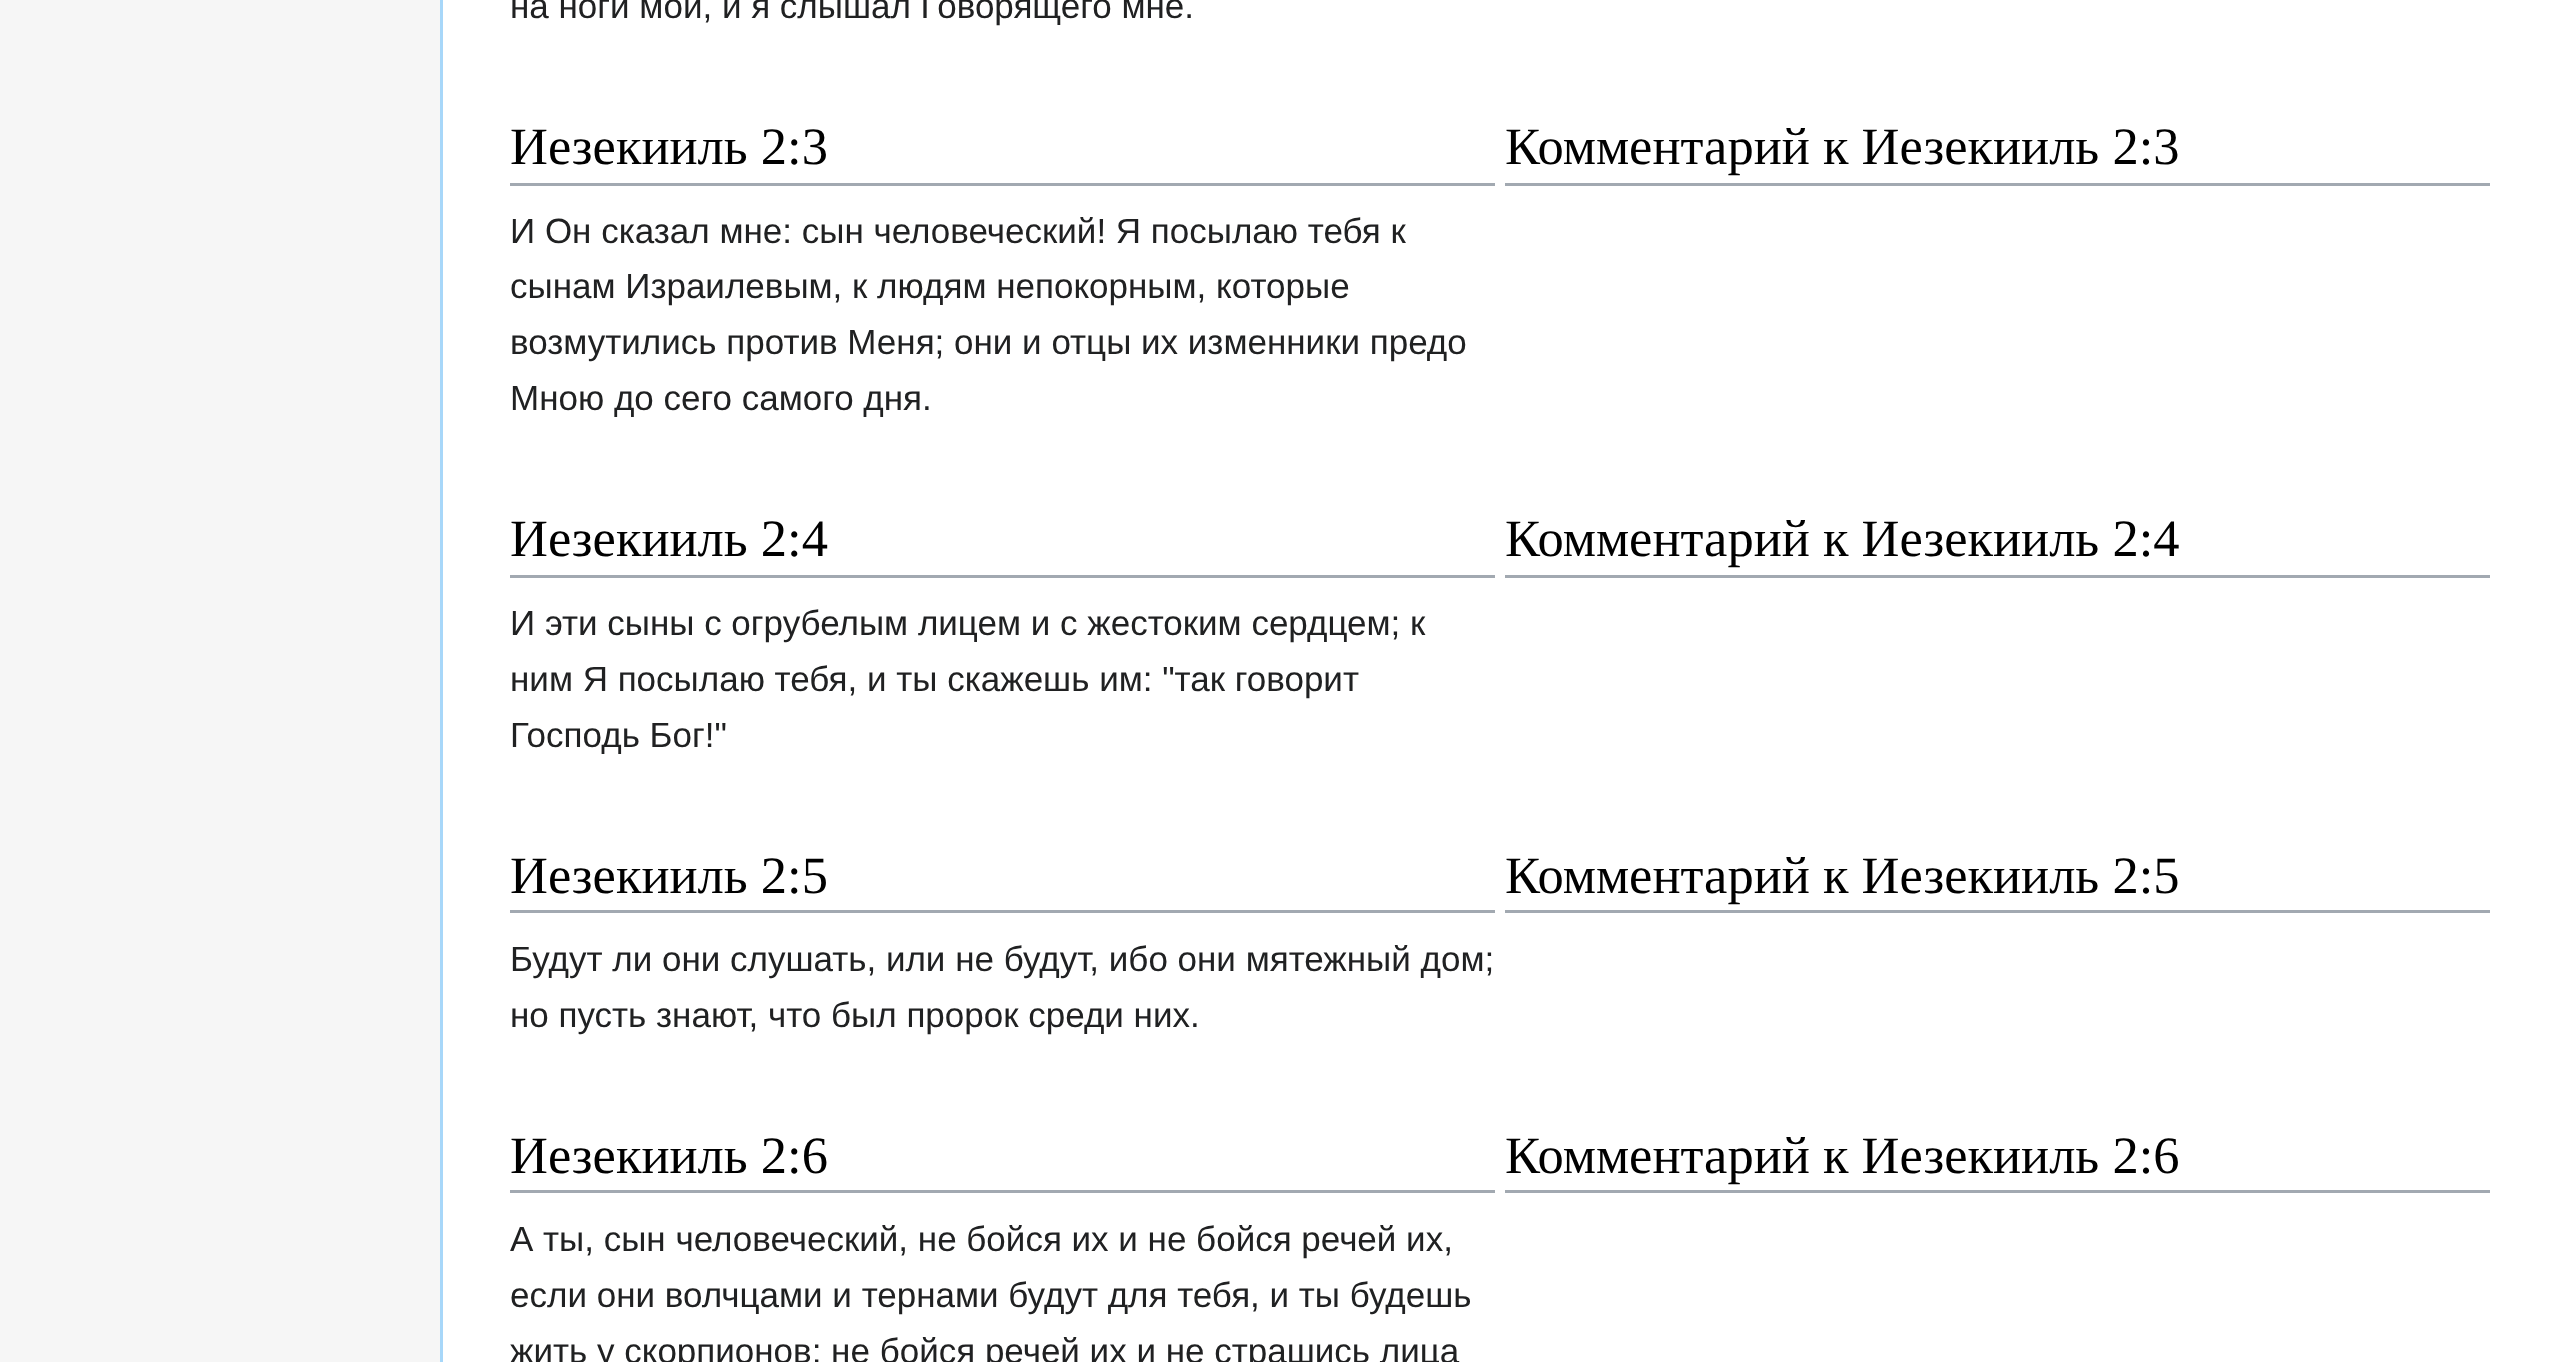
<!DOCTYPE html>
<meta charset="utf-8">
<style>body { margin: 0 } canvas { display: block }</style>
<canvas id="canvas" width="2557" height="1362"></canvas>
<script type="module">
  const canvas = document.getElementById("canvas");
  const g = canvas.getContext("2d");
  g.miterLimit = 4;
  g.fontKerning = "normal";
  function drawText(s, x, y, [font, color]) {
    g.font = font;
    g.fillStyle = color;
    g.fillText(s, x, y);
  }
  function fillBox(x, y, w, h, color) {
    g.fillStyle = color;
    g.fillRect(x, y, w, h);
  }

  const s1 = ["35px Liberation Sans", "#202122"];
  const s2 = ["52.5px Liberation Serif", "#000000"];

  fillBox(0, 0, 2557, 1362, "#F6F6F6");
  fillBox(443, 0, 2114, 1362, "#FFFFFF");
  fillBox(440, 0, 3, 1362, "#A7D7F9");
  drawText("на ноги мои, и я слышал Говорящего мне.", 510, 18, s1);
  fillBox(510, 183, 985, 3, "#A2A9B1");
  drawText("Иезекииль 2:3", 510, 164, s2);
  drawText("И Он сказал мне: сын человеческий! Я посылаю тебя к", 510, 243, s1);
  drawText("сынам Израилевым, к людям непокорным, которые", 510, 298, s1);
  drawText("возмутились против Меня; они и отцы их изменники предо", 510, 354, s1);
  drawText("Мною до сего самого дня.", 510, 410, s1);
  fillBox(1505, 183, 985, 3, "#A2A9B1");
  drawText("Комментарий к Иезекииль 2:3", 1505, 164, s2);
  fillBox(510, 575, 985, 3, "#A2A9B1");
  drawText("Иезекииль 2:4", 510, 556, s2);
  drawText("И эти сыны с огрубелым лицем и с жестоким сердцем; к", 510, 635, s1);
  drawText("ним Я посылаю тебя, и ты скажешь им: \"так говорит", 510, 691, s1);
  drawText("Господь Бог!\"", 510, 747, s1);
  fillBox(1505, 575, 985, 3, "#A2A9B1");
  drawText("Комментарий к Иезекииль 2:4", 1505, 556, s2);
  fillBox(510, 910, 985, 3, "#A2A9B1");
  drawText("Иезекииль 2:5", 510, 893, s2);
  drawText("Будут ли они слушать, или не будут, ибо они мятежный дом;", 510, 971, s1);
  drawText("но пусть знают, что был пророк среди них.", 510, 1027, s1);
  fillBox(1505, 910, 985, 3, "#A2A9B1");
  drawText("Комментарий к Иезекииль 2:5", 1505, 893, s2);
  fillBox(510, 1190, 985, 3, "#A2A9B1");
  drawText("Иезекииль 2:6", 510, 1173, s2);
  drawText("А ты, сын человеческий, не бойся их и не бойся речей их,", 510, 1251, s1);
  drawText("если они волчцами и тернами будут для тебя, и ты будешь", 510, 1307, s1);
  drawText("жить у скорпионов; не бойся речей их и не страшись лица", 510, 1363, s1);
  fillBox(1505, 1190, 985, 3, "#A2A9B1");
  drawText("Комментарий к Иезекииль 2:6", 1505, 1173, s2);
</script>
